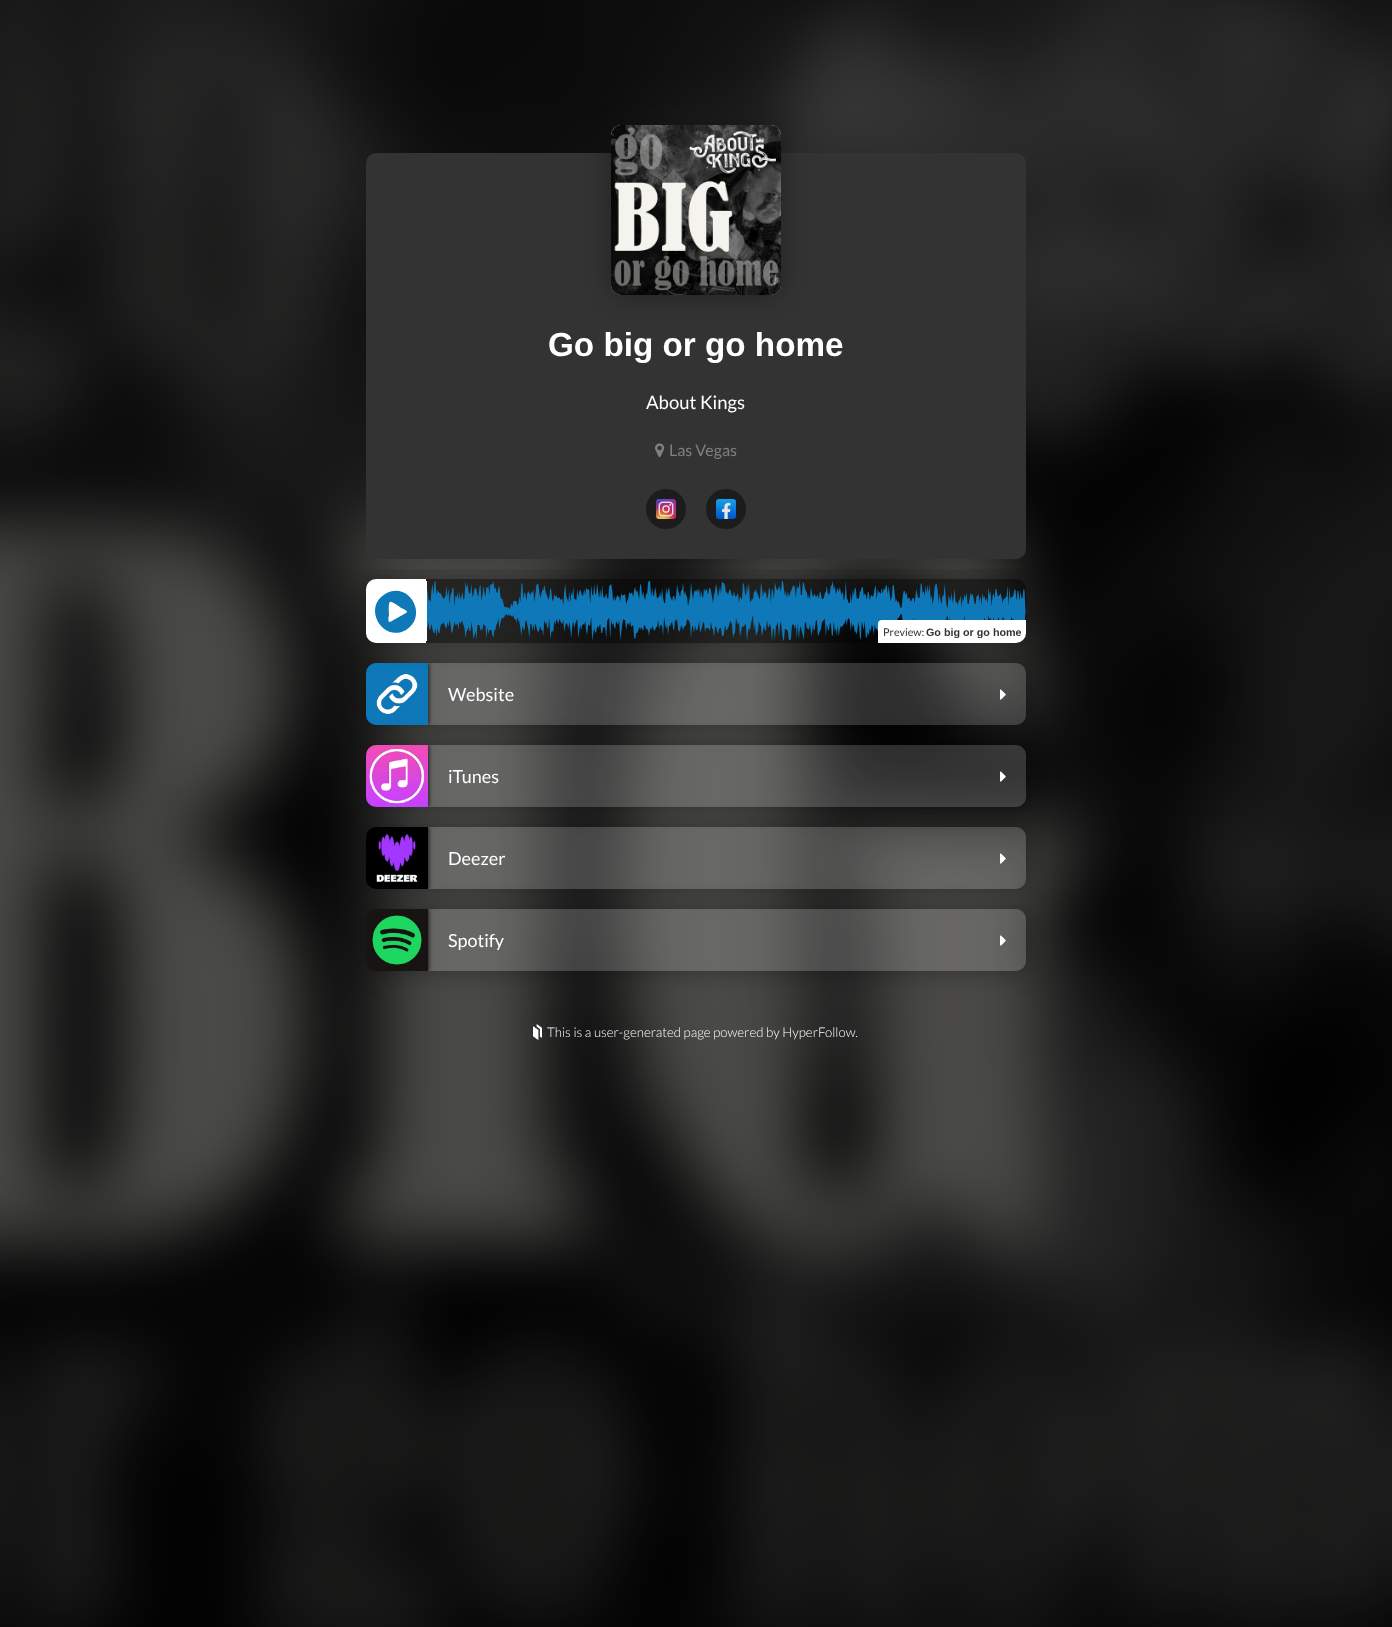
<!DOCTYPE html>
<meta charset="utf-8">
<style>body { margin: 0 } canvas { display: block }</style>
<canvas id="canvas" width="1392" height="1627"></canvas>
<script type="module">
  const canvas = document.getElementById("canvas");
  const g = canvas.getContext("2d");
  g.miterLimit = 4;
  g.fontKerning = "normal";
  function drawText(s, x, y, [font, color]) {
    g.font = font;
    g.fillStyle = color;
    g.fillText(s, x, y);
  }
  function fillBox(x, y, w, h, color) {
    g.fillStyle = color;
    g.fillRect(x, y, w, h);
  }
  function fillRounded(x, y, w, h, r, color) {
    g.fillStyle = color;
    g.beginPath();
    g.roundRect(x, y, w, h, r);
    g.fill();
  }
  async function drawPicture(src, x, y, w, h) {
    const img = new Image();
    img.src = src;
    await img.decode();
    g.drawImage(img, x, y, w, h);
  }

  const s1 = ["bold 33.25px Liberation Sans", "#FFFFFF"];
  const s2 = ["18.5px Lato", "#FFFFFF"];
  const s3 = ["16px Lato", "#808080"];
  const s4 = ["10.75px Lato", "#333333"];
  const s5 = ["bold 10.75px Liberation Sans", "#333333"];
  const s6 = ["18px Lato", "#FFFFFF"];
  const s7 = ["300 13.3px Lato", "#FFFFFF"];

  fillBox(0, 0, 1392, 1627, "#000000");
  await drawPicture("pic1.png", 0, 0, 1392, 1627);
  fillRounded(366, 153, 660, 406, 10, "#333333");
  g.fillStyle = "rgba(0, 0, 0, 0.35)";
  g.filter = "blur(12.5px)";
  g.beginPath();
  g.roundRect(611, 125, 170, 170, 10);
  g.fill();
  g.filter = "none";
  fillRounded(611, 125, 170, 170, 10, "#CCCCCC");
  await drawPicture("pic2.png", 611, 125, 170, 170);
  drawText("Go big or go home", 548, 356, s1);
  drawText("About Kings", 646, 409, s2);
  await drawPicture("pic3.png", 655, 443, 10, 15);
  drawText("Las Vegas", 669, 456, s3);
  g.fillStyle = "#1C1C1C";
  g.beginPath();
  g.arc(666, 509, 20, 0, Math.PI * 2);
  g.fill();
  await drawPicture("pic4.png", 656, 499, 20, 20);
  g.beginPath();
  g.arc(726, 509, 20, 0, Math.PI * 2);
  g.fill();
  await drawPicture("pic5.png", 716, 499, 20, 20);
  g.save();
  g.beginPath();
  g.rect(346, 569, 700, 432);
  g.clip();
  g.beginPath();
  g.moveTo(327, 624);
  g.lineTo(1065, 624);
  g.lineTo(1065, 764);
  g.lineTo(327, 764);
  g.closePath();
  g.moveTo(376, 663);
  g.lineTo(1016, 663);
  g.bezierCurveTo(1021.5, 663, 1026, 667.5, 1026, 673);
  g.lineTo(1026, 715);
  g.bezierCurveTo(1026, 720.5, 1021.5, 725, 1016, 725);
  g.lineTo(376, 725);
  g.bezierCurveTo(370.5, 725, 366, 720.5, 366, 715);
  g.lineTo(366, 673);
  g.bezierCurveTo(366, 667.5, 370.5, 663, 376, 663);
  g.closePath();
  g.clip("evenodd");
  g.fillStyle = "rgba(0, 0, 0, 0.35)";
  g.filter = "blur(12.5px)";
  g.beginPath();
  g.roundRect(366, 663, 660, 62, 10);
  g.fill();
  g.filter = "none";
  g.restore();
  fillRounded(366, 663, 660, 62, 10, "rgba(255, 255, 255, 0.17)");
  g.save();
  g.beginPath();
  g.roundRect(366, 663, 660, 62, 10);
  g.clip();
  g.fillStyle = "#000000";
  g.filter = "blur(2.5px)";
  g.beginPath();
  g.rect(366, 663, 62, 62);
  g.fill();
  g.filter = "none";
  g.restore();
  await drawPicture("pic7.png", 366, 663, 62, 62);
  g.save();
  g.beginPath();
  g.rect(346, 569, 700, 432);
  g.clip();
  g.beginPath();
  g.moveTo(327, 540);
  g.lineTo(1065, 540);
  g.lineTo(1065, 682);
  g.lineTo(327, 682);
  g.closePath();
  g.moveTo(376, 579);
  g.lineTo(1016, 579);
  g.bezierCurveTo(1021.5, 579, 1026, 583.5, 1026, 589);
  g.lineTo(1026, 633);
  g.bezierCurveTo(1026, 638.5, 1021.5, 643, 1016, 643);
  g.lineTo(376, 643);
  g.bezierCurveTo(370.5, 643, 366, 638.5, 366, 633);
  g.lineTo(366, 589);
  g.bezierCurveTo(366, 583.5, 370.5, 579, 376, 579);
  g.closePath();
  g.clip("evenodd");
  g.fillStyle = "rgba(0, 0, 0, 0.35)";
  g.filter = "blur(12.5px)";
  g.beginPath();
  g.roundRect(366, 579, 660, 64, 10);
  g.fill();
  g.filter = "none";
  g.restore();
  g.fillStyle = "#FFFFFF";
  g.beginPath();
  g.roundRect(366, 579, 60, 64, [10, 0, 0, 10]);
  g.fill();
  g.fillStyle = "#0F78B8";
  g.beginPath();
  g.moveTo(385, 594);
  g.bezierCurveTo(409, 580, 429, 616, 406, 630);
  g.bezierCurveTo(383, 643, 362, 608, 385, 594);
  g.closePath();
  g.moveTo(406, 613);
  g.bezierCurveTo(410, 611, 401, 608, 401, 608);
  g.bezierCurveTo(399, 606, 391, 601, 390, 602);
  g.bezierCurveTo(388, 603, 389, 613, 389, 615);
  g.bezierCurveTo(389, 616, 387, 622, 390, 622);
  g.closePath();
  g.fill();
  g.fillStyle = "rgba(0, 0, 0, 0.5)";
  g.beginPath();
  g.roundRect(426, 579, 600, 64, [0, 10, 10, 0]);
  g.fill();
  fillBox(426, 581, 1, 60, "#FFFFFF");
  await drawPicture("pic6.png", 427, 581, 599, 60);
  g.beginPath();
  g.roundRect(878, 620, 148, 23, [4, 0, 10, 0]);
  g.fill();
  drawText("Preview:", 883, 636, s4);
  g.save();
  g.beginPath();
  g.rect(883, 625, 138, 13);
  g.clip();
  drawText("Go big or go home", 926, 636, s5);
  g.restore();
  drawText("Website", 448, 701, s6);
  await drawPicture("pic8.png", 1000, 689, 6, 11);
  g.save();
  g.beginPath();
  g.rect(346, 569, 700, 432);
  g.clip();
  g.beginPath();
  g.moveTo(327, 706);
  g.lineTo(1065, 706);
  g.lineTo(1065, 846);
  g.lineTo(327, 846);
  g.closePath();
  g.moveTo(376, 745);
  g.lineTo(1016, 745);
  g.bezierCurveTo(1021.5, 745, 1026, 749.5, 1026, 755);
  g.lineTo(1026, 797);
  g.bezierCurveTo(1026, 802.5, 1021.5, 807, 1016, 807);
  g.lineTo(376, 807);
  g.bezierCurveTo(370.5, 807, 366, 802.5, 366, 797);
  g.lineTo(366, 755);
  g.bezierCurveTo(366, 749.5, 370.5, 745, 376, 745);
  g.closePath();
  g.clip("evenodd");
  g.fillStyle = "rgba(0, 0, 0, 0.35)";
  g.filter = "blur(12.5px)";
  g.beginPath();
  g.roundRect(366, 745, 660, 62, 10);
  g.fill();
  g.filter = "none";
  g.restore();
  fillRounded(366, 745, 660, 62, 10, "rgba(255, 255, 255, 0.17)");
  g.save();
  g.beginPath();
  g.roundRect(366, 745, 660, 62, 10);
  g.clip();
  g.fillStyle = "#000000";
  g.filter = "blur(2.5px)";
  g.beginPath();
  g.rect(366, 745, 62, 62);
  g.fill();
  g.filter = "none";
  g.restore();
  await drawPicture("pic9.png", 366, 745, 62, 62);
  drawText("iTunes", 448, 783, s6);
  await drawPicture("pic10.png", 1000, 771, 6, 11);
  g.save();
  g.beginPath();
  g.rect(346, 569, 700, 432);
  g.clip();
  g.beginPath();
  g.moveTo(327, 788);
  g.lineTo(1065, 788);
  g.lineTo(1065, 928);
  g.lineTo(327, 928);
  g.closePath();
  g.moveTo(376, 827);
  g.lineTo(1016, 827);
  g.bezierCurveTo(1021.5, 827, 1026, 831.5, 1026, 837);
  g.lineTo(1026, 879);
  g.bezierCurveTo(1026, 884.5, 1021.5, 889, 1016, 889);
  g.lineTo(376, 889);
  g.bezierCurveTo(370.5, 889, 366, 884.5, 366, 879);
  g.lineTo(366, 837);
  g.bezierCurveTo(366, 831.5, 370.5, 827, 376, 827);
  g.closePath();
  g.clip("evenodd");
  g.fillStyle = "rgba(0, 0, 0, 0.35)";
  g.filter = "blur(12.5px)";
  g.beginPath();
  g.roundRect(366, 827, 660, 62, 10);
  g.fill();
  g.filter = "none";
  g.restore();
  fillRounded(366, 827, 660, 62, 10, "rgba(255, 255, 255, 0.17)");
  g.save();
  g.beginPath();
  g.roundRect(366, 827, 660, 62, 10);
  g.clip();
  g.fillStyle = "#000000";
  g.filter = "blur(2.5px)";
  g.beginPath();
  g.rect(366, 827, 62, 62);
  g.fill();
  g.filter = "none";
  g.restore();
  await drawPicture("pic11.png", 366, 827, 62, 62);
  drawText("Deezer", 448, 865, s6);
  await drawPicture("pic12.png", 1000, 853, 6, 11);
  g.save();
  g.beginPath();
  g.rect(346, 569, 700, 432);
  g.clip();
  g.beginPath();
  g.moveTo(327, 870);
  g.lineTo(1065, 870);
  g.lineTo(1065, 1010);
  g.lineTo(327, 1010);
  g.closePath();
  g.moveTo(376, 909);
  g.lineTo(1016, 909);
  g.bezierCurveTo(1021.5, 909, 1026, 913.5, 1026, 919);
  g.lineTo(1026, 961);
  g.bezierCurveTo(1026, 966.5, 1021.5, 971, 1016, 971);
  g.lineTo(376, 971);
  g.bezierCurveTo(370.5, 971, 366, 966.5, 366, 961);
  g.lineTo(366, 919);
  g.bezierCurveTo(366, 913.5, 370.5, 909, 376, 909);
  g.closePath();
  g.clip("evenodd");
  g.fillStyle = "rgba(0, 0, 0, 0.35)";
  g.filter = "blur(12.5px)";
  g.beginPath();
  g.roundRect(366, 909, 660, 62, 10);
  g.fill();
  g.filter = "none";
  g.restore();
  fillRounded(366, 909, 660, 62, 10, "rgba(255, 255, 255, 0.17)");
  g.save();
  g.beginPath();
  g.roundRect(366, 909, 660, 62, 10);
  g.clip();
  g.fillStyle = "#000000";
  g.filter = "blur(2.5px)";
  g.beginPath();
  g.rect(366, 909, 62, 62);
  g.fill();
  g.filter = "none";
  g.restore();
  await drawPicture("pic13.png", 366, 909, 62, 62);
  drawText("Spotify", 448, 947, s6);
  await drawPicture("pic14.png", 1000, 935, 6, 11);
  await drawPicture("pic15.png", 533, 1024, 9, 16);
  drawText("This is a user-generated page powered by HyperFollow.", 547, 1037, s7);
</script>
